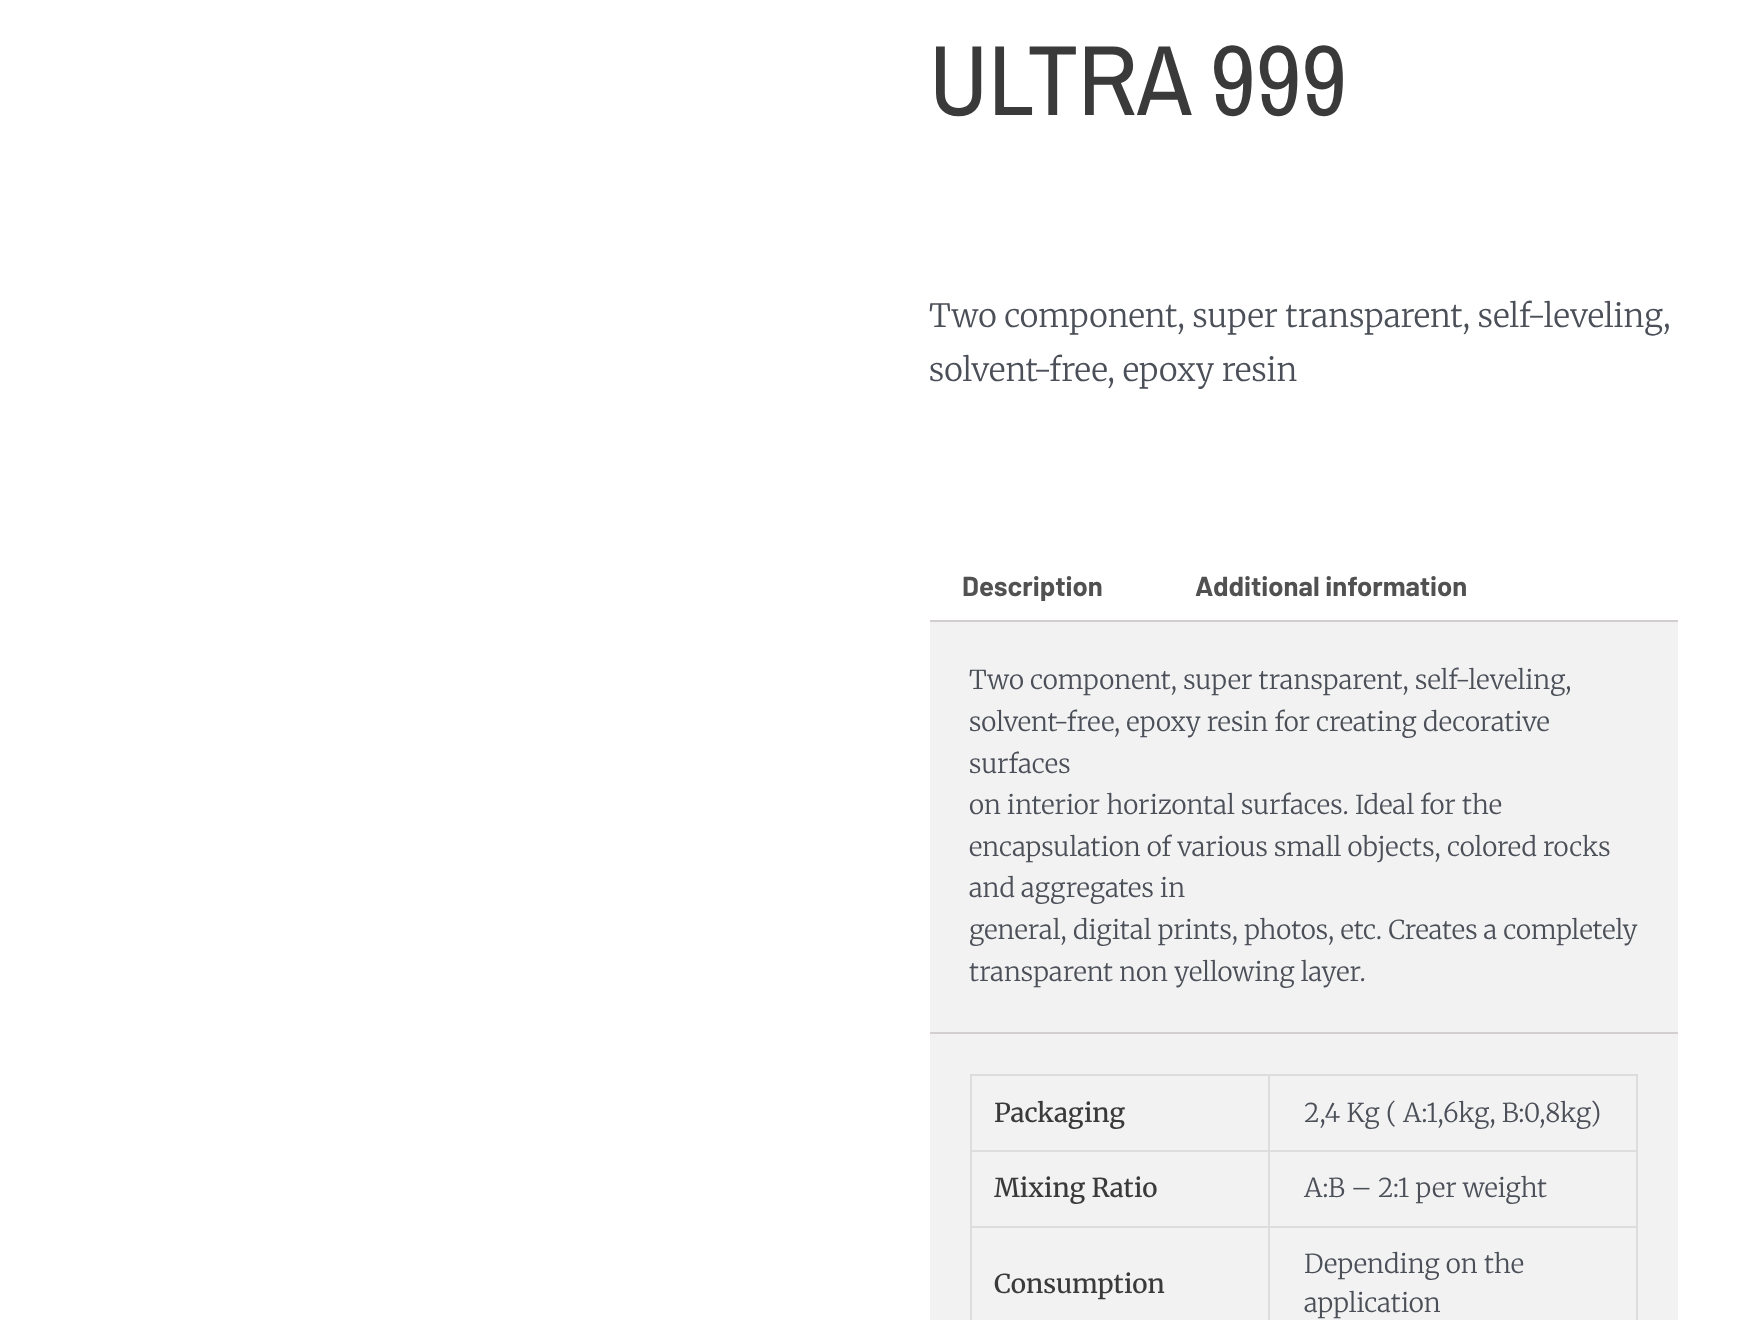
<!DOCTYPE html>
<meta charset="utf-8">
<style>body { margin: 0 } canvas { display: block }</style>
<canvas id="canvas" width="1738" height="1320"></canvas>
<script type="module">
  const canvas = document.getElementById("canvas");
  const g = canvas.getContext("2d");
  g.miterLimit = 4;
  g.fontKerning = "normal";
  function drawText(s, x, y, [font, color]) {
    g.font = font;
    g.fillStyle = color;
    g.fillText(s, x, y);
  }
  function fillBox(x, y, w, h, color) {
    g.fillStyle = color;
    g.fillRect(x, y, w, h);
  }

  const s1 = ["100px Archivo Narrow", "#3A3A3A"];
  const s2 = ["300 32px Merriweather", "#4B4F58"];
  const s3 = ["bold 27.4px Barlow", "#515151"];
  const s4 = ["300 26px Merriweather", "#4B4F58"];
  const s5 = ["500 26px Merriweather", "#3A3A3A"];

  fillBox(0, 0, 1738, 1320, "#FFFFFF");
  drawText("ULTRA 999", 929, 115, s1);
  drawText("Two component, super transparent, self-leveling,", 929, 327, s2);
  drawText("solvent-free, epoxy resin", 929, 381, s2);
  drawText("Description", 962, 596, s3);
  drawText("Additional information", 1195, 596, s3);
  fillBox(930, 622, 748, 410, "#F2F2F2");
  fillBox(930, 620, 748, 2, "#D3CED2");
  drawText("Two component, super transparent, self-leveling,", 969, 689, s4);
  drawText("solvent-free, epoxy resin for creating decorative", 969, 731, s4);
  drawText("surfaces", 969, 773, s4);
  drawText("on interior horizontal surfaces. Ideal for the", 969, 814, s4);
  drawText("encapsulation of various small objects, colored rocks", 969, 856, s4);
  drawText("and aggregates in", 969, 897, s4);
  drawText("general, digital prints, photos, etc. Creates a completely", 969, 939, s4);
  drawText("transparent non yellowing layer.", 969, 981, s4);
  fillBox(930, 1034, 748, 286, "#F2F2F2");
  fillBox(930, 1032, 748, 2, "#D3CED2");
  fillBox(970, 1074, 668, 2, "#DDDDDD");
  fillBox(1268, 1076, 2, 244, "#DDDDDD");
  fillBox(970, 1150, 300, 2, "#DDDDDD");
  fillBox(970, 1076, 2, 76, "#DDDDDD");
  drawText("Packaging", 994, 1122, s5);
  fillBox(1636, 1076, 2, 244, "#DDDDDD");
  fillBox(1270, 1150, 368, 2, "#DDDDDD");
  drawText("2,4 Kg ( A:1,6kg, B:0,8kg)", 1304, 1122, s4);
  fillBox(970, 1226, 668, 2, "#DDDDDD");
  fillBox(970, 1152, 2, 168, "#DDDDDD");
  drawText("Mixing Ratio", 994, 1197, s5);
  drawText("A:B – 2:1 per weight", 1304, 1197, s4);
  drawText("Consumption", 994, 1293, s5);
  drawText("Depending on the", 1304, 1273, s4);
  drawText("application", 1304, 1312, s4);
</script>
